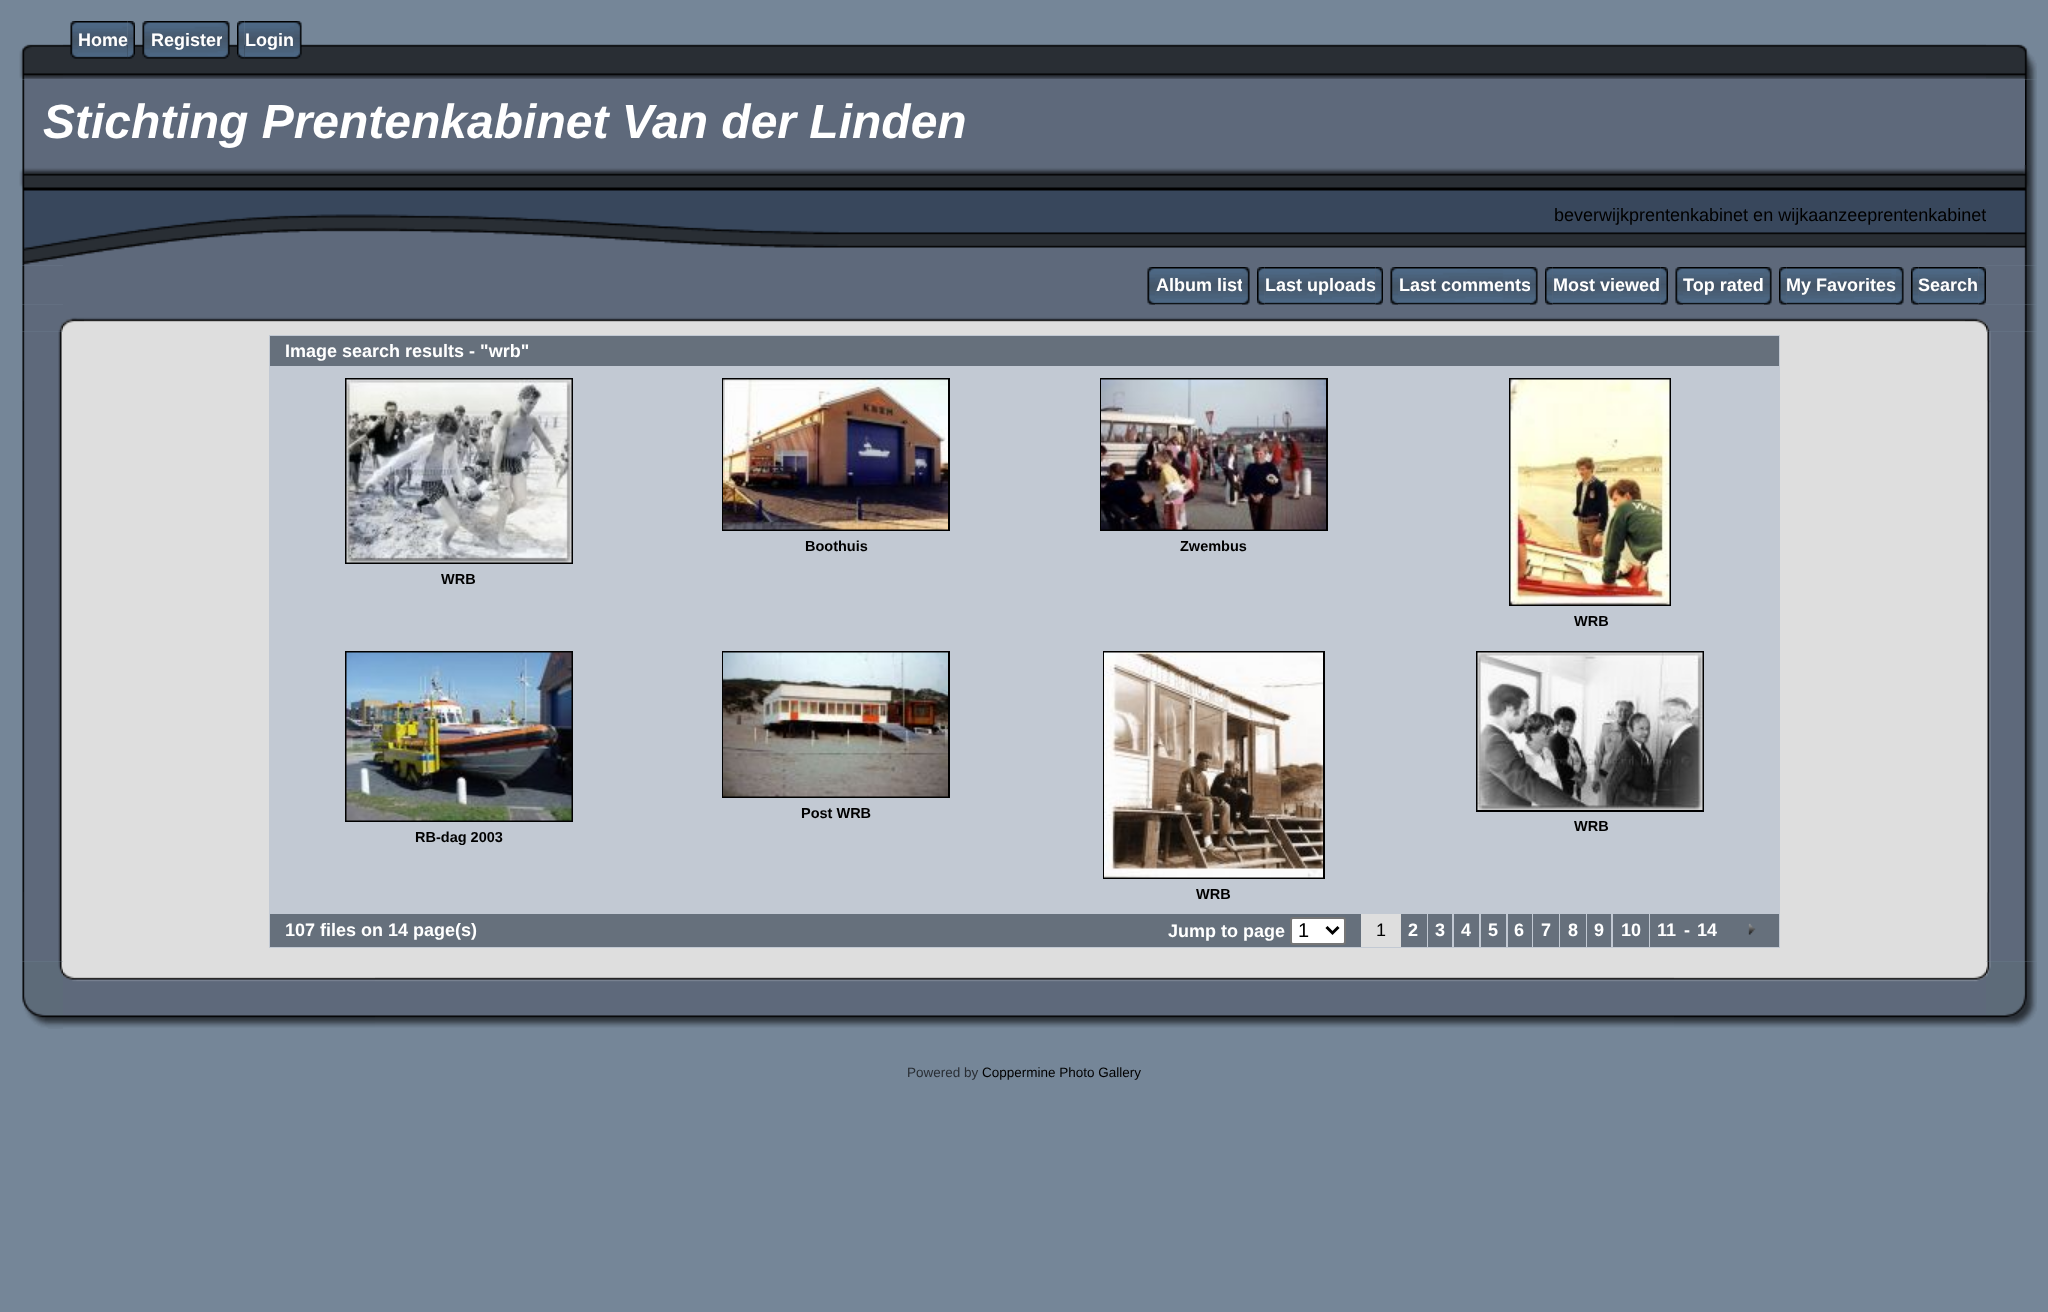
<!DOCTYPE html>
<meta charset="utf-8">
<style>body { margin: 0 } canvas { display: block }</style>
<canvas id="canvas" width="2048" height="1312"></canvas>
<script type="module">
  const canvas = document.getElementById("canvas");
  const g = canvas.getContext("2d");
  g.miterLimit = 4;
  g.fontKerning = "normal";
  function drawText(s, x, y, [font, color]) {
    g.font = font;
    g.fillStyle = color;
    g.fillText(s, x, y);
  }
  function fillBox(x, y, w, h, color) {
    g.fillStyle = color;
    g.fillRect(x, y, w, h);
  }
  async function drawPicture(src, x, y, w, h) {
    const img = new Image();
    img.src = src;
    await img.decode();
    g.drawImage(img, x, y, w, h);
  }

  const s1 = ["bold 18px Liberation Sans", "#FFFFFF"];
  const s2 = ["italic bold 48px Liberation Sans", "#FFFFFF"];
  const s3 = ["18px Liberation Sans", "#000000"];
  const s4 = ["bold 14.5px Liberation Sans", "#000000"];
  const s5 = ["20px Liberation Sans", "#000000"];
  const s6 = ["13.5px Liberation Sans", "#292E34"];
  const s7 = ["13.5px Liberation Sans", "#000000"];

  fillBox(0, 0, 2048, 1312, "#758698");
  await drawPicture("pic1.png", 63, 44, 1923, 35);
  await drawPicture("pic2.png", 70, 21, 8, 38);
  await drawPicture("pic3.png", 78, 21, 50, 38);
  drawText("Home", 78, 46, s1);
  await drawPicture("pic4.png", 127, 21, 8, 38);
  await drawPicture("pic2.png", 142, 21, 8, 38);
  await drawPicture("pic5.png", 150, 21, 72, 38);
  drawText("Register", 151, 46, s1);
  await drawPicture("pic6.png", 222, 21, 8, 38);
  await drawPicture("pic8.png", 244, 21, 50, 38);
  await drawPicture("pic7.png", 237, 21, 8, 38);
  drawText("Login", 245, 46, s1);
  await drawPicture("pic9.png", 294, 21, 8, 38);
  await drawPicture("pic10.png", 19, 44, 44, 36);
  await drawPicture("pic11.png", 1986, 44, 51, 36);
  await drawPicture("pic12.png", 22, 79, 5, 86);
  fillBox(27, 79, 1998, 86, "#5E697B");
  drawText("Stichting Prentenkabinet Van der Linden", 43, 138, s2);
  await drawPicture("pic13.png", 2025, 79, 12, 86);
  await drawPicture("pic14.png", 19, 165, 821, 101);
  await drawPicture("pic15.png", 840, 165, 1146, 100);
  drawText("beverwijkprentenkabinet en wijkaanzeeprentenkabinet", 1554, 221, s3);
  await drawPicture("pic16.png", 1986, 165, 51, 101);
  await drawPicture("pic17.png", 22, 265, 41, 40);
  fillBox(63, 265, 1923, 40, "#5E697B");
  await drawPicture("pic19.png", 1155, 267, 87, 38);
  await drawPicture("pic22.png", 1264, 267, 112, 38);
  await drawPicture("pic24.png", 1398, 267, 132, 38);
  await drawPicture("pic27.png", 1552, 267, 109, 38);
  await drawPicture("pic30.png", 1683, 267, 81, 38);
  await drawPicture("pic31.png", 1786, 267, 110, 38);
  await drawPicture("pic33.png", 1918, 267, 61, 38);
  await drawPicture("pic38.png", 84, 304, 1881, 27);
  await drawPicture("pic18.png", 1147, 267, 8, 38);
  drawText("Album list", 1156, 291, s1);
  await drawPicture("pic20.png", 1242, 267, 8, 38);
  await drawPicture("pic21.png", 1257, 267, 8, 38);
  drawText("Last uploads", 1265, 291, s1);
  await drawPicture("pic23.png", 1375, 267, 8, 38);
  await drawPicture("pic18.png", 1390, 267, 8, 38);
  drawText("Last comments", 1399, 291, s1);
  await drawPicture("pic25.png", 1530, 267, 8, 38);
  await drawPicture("pic26.png", 1545, 267, 8, 38);
  drawText("Most viewed", 1553, 291, s1);
  await drawPicture("pic28.png", 1660, 267, 8, 38);
  await drawPicture("pic29.png", 1675, 267, 8, 38);
  drawText("Top rated", 1683, 291, s1);
  await drawPicture("pic25.png", 1764, 267, 8, 38);
  await drawPicture("pic26.png", 1779, 267, 8, 38);
  drawText("My Favorites", 1786, 291, s1);
  await drawPicture("pic20.png", 1896, 267, 8, 38);
  await drawPicture("pic32.png", 1911, 267, 8, 38);
  drawText("Search", 1918, 291, s1);
  await drawPicture("pic39.png", 1965, 304, 21, 27);
  await drawPicture("pic34.png", 1978, 267, 8, 38);
  await drawPicture("pic35.png", 1986, 265, 51, 40);
  await drawPicture("pic36.png", 22, 304, 41, 28);
  await drawPicture("pic37.png", 63, 305, 21, 26);
  await drawPicture("pic40.png", 1986, 304, 51, 28);
  await drawPicture("pic41.png", 22, 331, 41, 631);
  fillBox(23, 401, 1, 491, "#0B0D0F");
  fillBox(63, 331, 1923, 631, "#DEDEDE");
  fillBox(269, 335, 1511, 613, "#C2C9D3");
  fillBox(270, 336, 1509, 30, "#66707C");
  drawText("Image search results - \"wrb\"", 285, 357, s1);
  g.strokeStyle = "#000000";
  g.lineWidth = 2;
  g.strokeRect(723, 379, 226, 151);
  await drawPicture("pic42.png", 723, 379, 225, 151);
  drawText("Boothuis", 805, 551, s4);
  g.strokeRect(1101, 379, 226, 151);
  await drawPicture("pic43.png", 1101, 379, 225, 151);
  drawText("Zwembus", 1180, 551, s4);
  g.strokeRect(346, 379, 226, 184);
  await drawPicture("pic44.png", 346, 379, 226, 184);
  drawText("WRB", 441, 584, s4);
  g.strokeRect(1510, 379, 160, 226);
  await drawPicture("pic45.png", 1510, 379, 160, 226);
  drawText("WRB", 1574, 626, s4);
  g.strokeRect(723, 652, 226, 145);
  await drawPicture("pic46.png", 723, 652, 225, 145);
  drawText("Post WRB", 801, 818, s4);
  g.strokeRect(1477, 652, 226, 159);
  await drawPicture("pic47.png", 1477, 652, 226, 158);
  drawText("WRB", 1574, 831, s4);
  g.strokeRect(346, 652, 226, 169);
  await drawPicture("pic48.png", 346, 652, 226, 169);
  drawText("RB-dag 2003", 415, 842, s4);
  g.strokeRect(1104, 652, 220, 226);
  await drawPicture("pic49.png", 1104, 652, 219, 226);
  drawText("WRB", 1196, 899, s4);
  fillBox(270, 914, 1091, 33, "#66707C");
  drawText("107 files on 14 page(s)", 285, 936, s1);
  drawText("Jump to page", 1168, 937, s1);
  g.beginPath();
  g.roundRect(1291, 918, 54, 26, 2);
  g.fill();
  g.strokeStyle = "#767676";
  g.stroke();
  g.beginPath();
  g.moveTo(1326.5, 927);
  g.lineTo(1332.5, 933);
  g.lineTo(1338.5, 927);
  g.strokeStyle = "#000000";
  g.lineWidth = 3;
  g.stroke();
  drawText("1", 1298, 937, s5);
  fillBox(1361, 914, 40, 33, "#DEDEDE");
  drawText("1", 1376, 936, s3);
  fillBox(1401, 914, 26, 33, "#66707C");
  drawText("2", 1408, 936, s1);
  fillBox(1428, 914, 24, 33, "#66707C");
  drawText("3", 1435, 936, s1);
  fillBox(1454, 914, 25, 33, "#66707C");
  drawText("4", 1461, 936, s1);
  fillBox(1481, 914, 25, 33, "#66707C");
  drawText("5", 1488, 936, s1);
  fillBox(1508, 914, 24, 33, "#66707C");
  drawText("6", 1514, 936, s1);
  fillBox(1533, 914, 26, 33, "#66707C");
  drawText("7", 1541, 936, s1);
  fillBox(1560, 914, 26, 33, "#66707C");
  drawText("8", 1568, 936, s1);
  fillBox(1587, 914, 24, 33, "#66707C");
  drawText("9", 1594, 936, s1);
  fillBox(1613, 914, 36, 33, "#66707C");
  drawText("10", 1621, 936, s1);
  fillBox(1650, 914, 129, 33, "#66707C");
  drawText("11", 1657, 936, s1);
  drawText("-", 1684, 936, s1);
  drawText("14", 1697, 936, s1);
  await drawPicture("pic50.png", 1748, 923, 8, 12);
  await drawPicture("pic51.png", 1986, 331, 51, 631);
  await drawPicture("pic52.png", 1987, 400, 4, 493);
  await drawPicture("pic53.png", 22, 961, 41, 68);
  await drawPicture("pic54.png", 63, 962, 312, 66);
  await drawPicture("pic55.png", 375, 962, 1299, 66);
  await drawPicture("pic56.png", 1674, 962, 312, 66);
  await drawPicture("pic57.png", 1986, 961, 51, 67);
  drawText("Powered by", 907, 1077, s6);
  drawText("Coppermine Photo Gallery", 982, 1077, s7);
</script>
